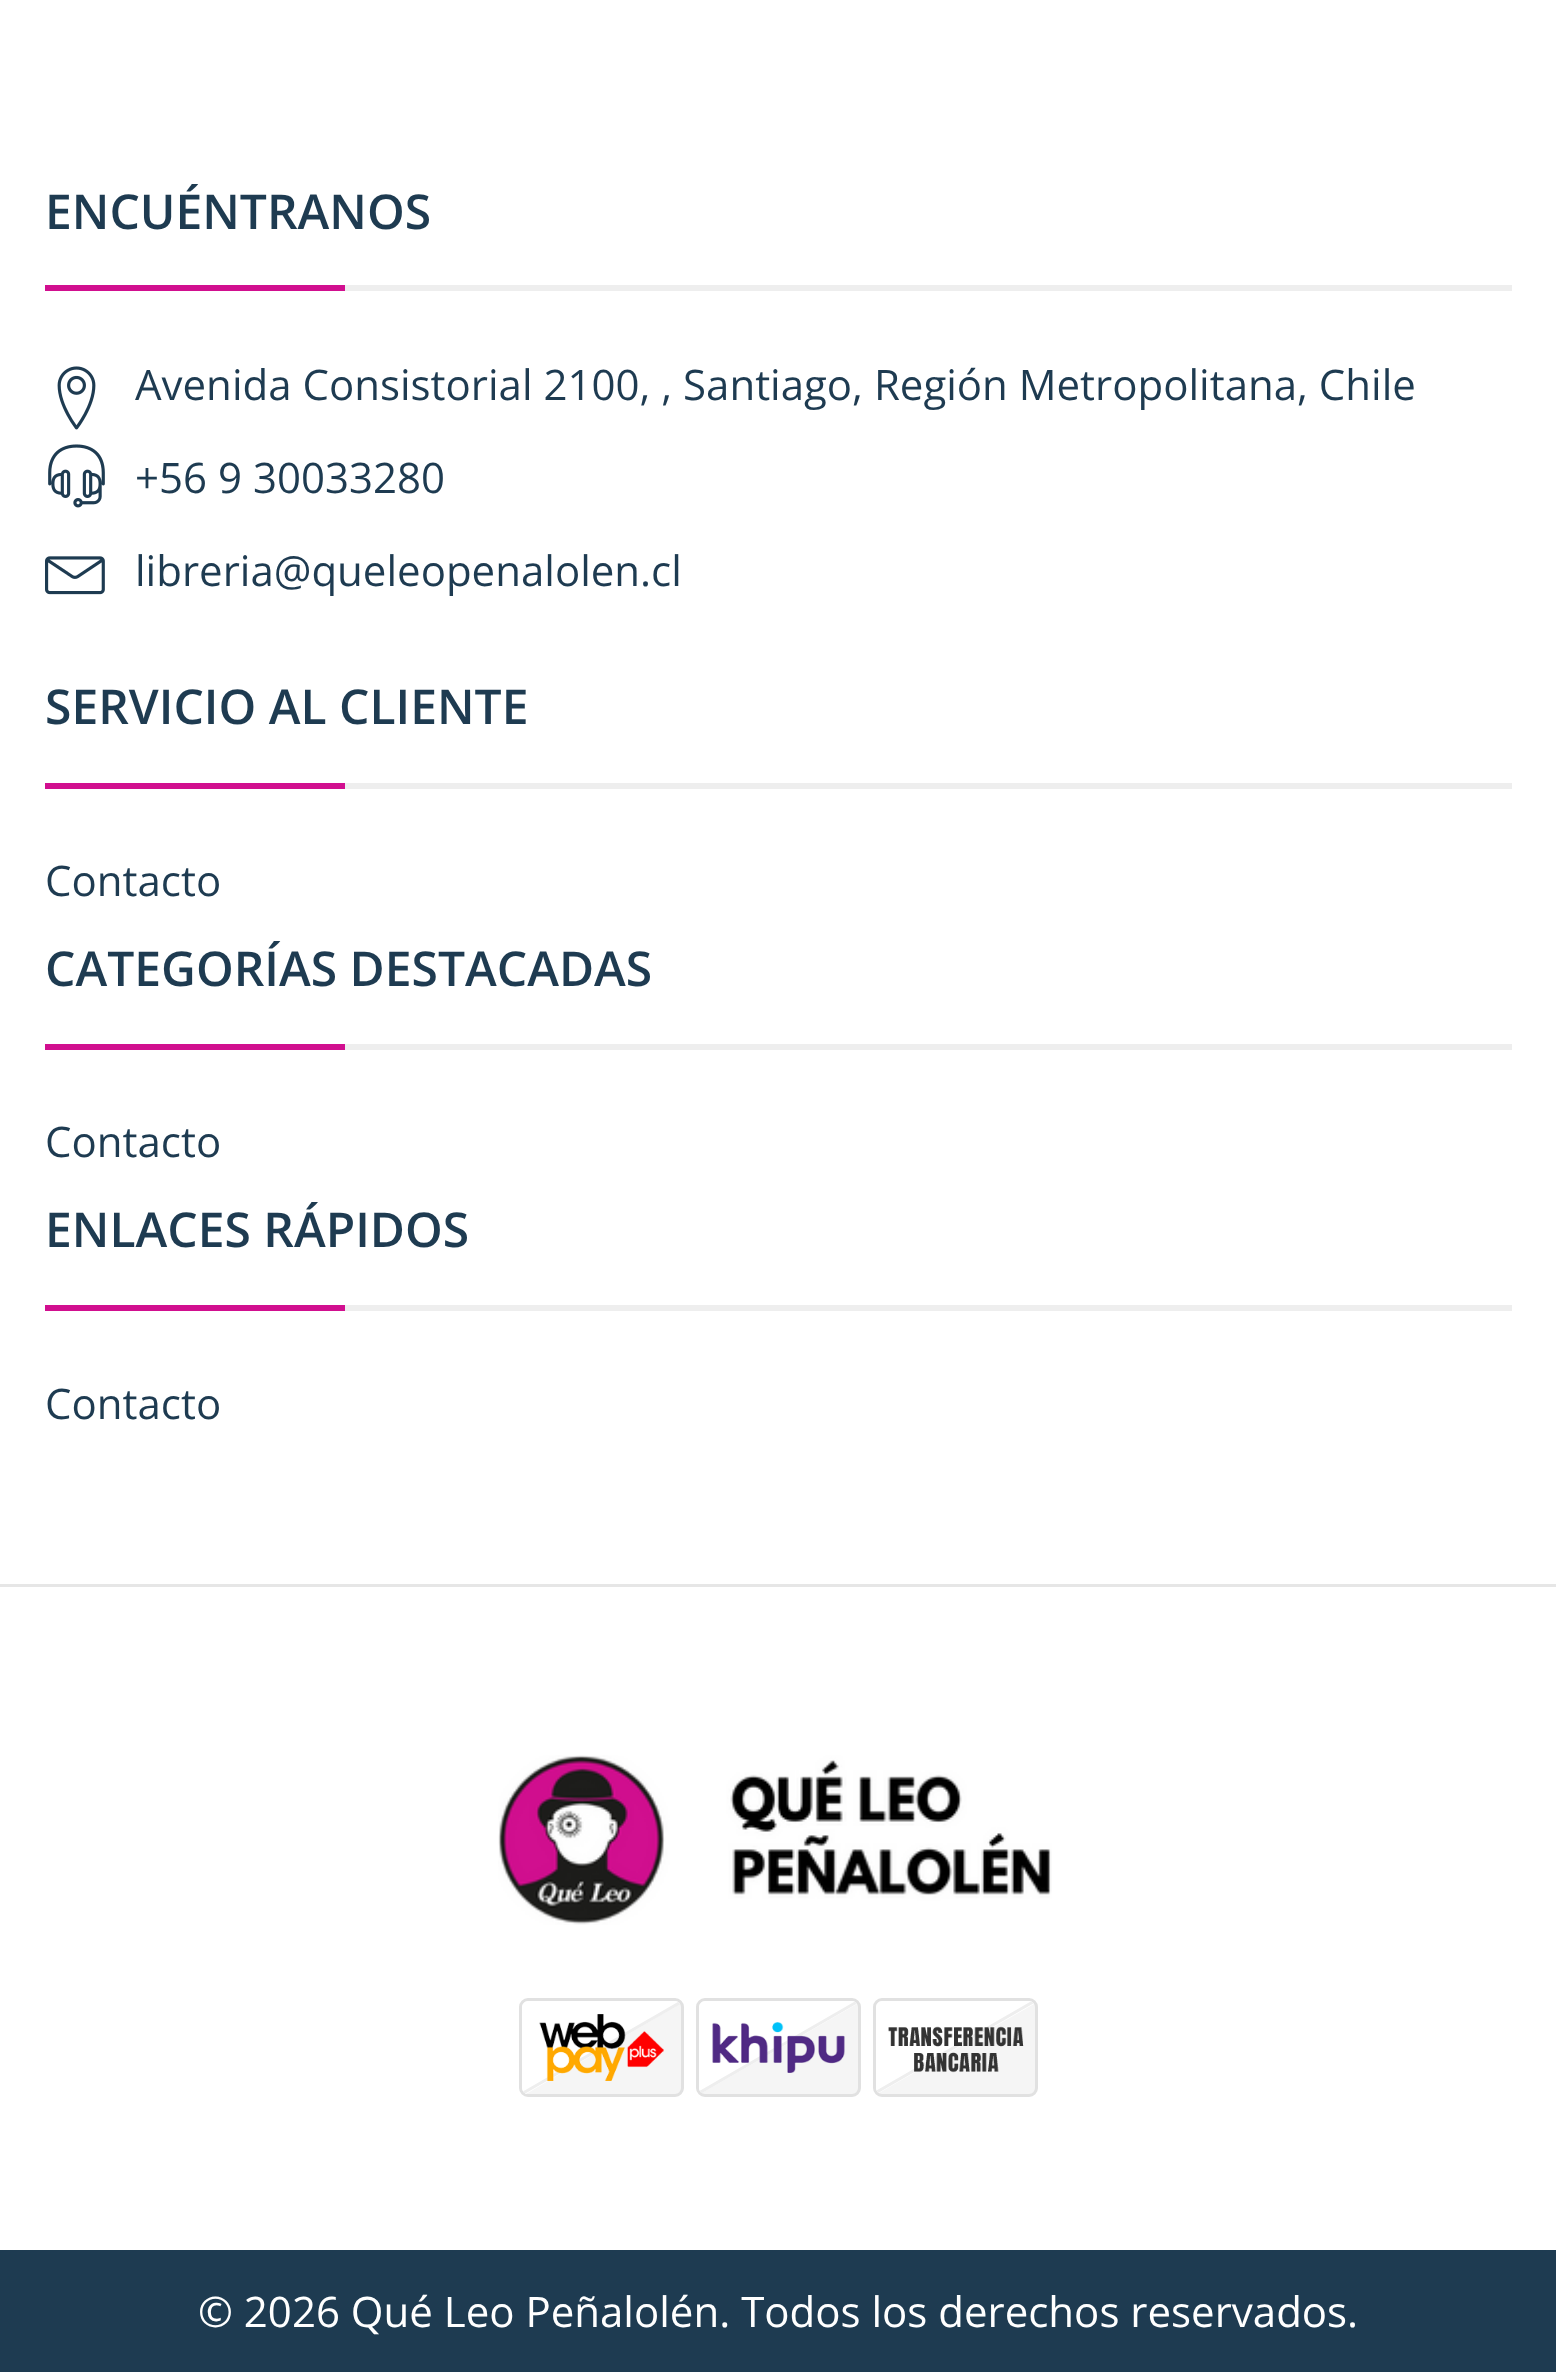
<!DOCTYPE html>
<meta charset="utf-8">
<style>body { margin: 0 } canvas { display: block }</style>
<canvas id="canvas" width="1556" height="2372"></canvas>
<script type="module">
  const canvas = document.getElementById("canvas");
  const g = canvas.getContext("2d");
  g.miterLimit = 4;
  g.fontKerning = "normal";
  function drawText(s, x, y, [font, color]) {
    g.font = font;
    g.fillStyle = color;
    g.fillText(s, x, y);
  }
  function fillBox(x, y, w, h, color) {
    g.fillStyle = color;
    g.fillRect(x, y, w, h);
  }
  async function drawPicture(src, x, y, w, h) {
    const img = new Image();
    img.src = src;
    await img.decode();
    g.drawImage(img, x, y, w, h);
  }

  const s1 = ["600 48px Open Sans", "#1E3B51"];
  const s2 = ["42px Open Sans", "#1E3B51"];
  const s3 = ["42px Open Sans", "#FFFFFF"];

  fillBox(0, 0, 1556, 2372, "#FFFFFF");
  fillBox(345, 285, 1167, 6, "#EEEEEE");
  drawText("ENCUÉNTRANOS", 45, 229, s1);
  fillBox(45, 285, 300, 6, "#D10F8F");
  await drawPicture("pic1.png", 57, 366, 39, 64);
  drawText("Avenida Consistorial 2100, , Santiago, Región Metropolitana, Chile", 135, 400, s2);
  await drawPicture("pic2.png", 48, 444, 57, 64);
  drawText("+56 9 30033280", 135, 493, s2);
  await drawPicture("pic3.png", 45, 556, 60, 39);
  drawText("libreria@queleopenalolen.cl", 135, 586, s2);
  fillBox(345, 783, 1167, 6, "#EEEEEE");
  drawText("SERVICIO AL CLIENTE", 45, 724, s1);
  fillBox(45, 783, 300, 6, "#D10F8F");
  drawText("Contacto", 45, 896, s2);
  fillBox(345, 1044, 1167, 6, "#EEEEEE");
  drawText("CATEGORÍAS DESTACADAS", 45, 986, s1);
  fillBox(45, 1044, 300, 6, "#D10F8F");
  drawText("Contacto", 45, 1157, s2);
  fillBox(345, 1305, 1167, 6, "#EEEEEE");
  drawText("ENLACES RÁPIDOS", 45, 1247, s1);
  fillBox(45, 1305, 300, 6, "#D10F8F");
  drawText("Contacto", 45, 1419, s2);
  fillBox(0, 1584, 1556, 3, "#E6E6E6");
  await drawPicture("pic4.png", 498, 1755, 554, 170);
  g.fillStyle = "#F5F5F5";
  g.beginPath();
  g.roundRect(520.5, 1999.5, 162, 96, 7.5);
  g.fill();
  g.strokeStyle = "#E1E1E1";
  g.lineWidth = 3;
  g.stroke();
  g.fillStyle = "#FFFFFF";
  g.beginPath();
  g.moveTo(528, 2001);
  g.lineTo(675, 2001);
  g.bezierCurveTo(677, 2001, 679, 2002, 680, 2004);
  g.lineTo(526, 2094);
  g.bezierCurveTo(524, 2093, 522, 2091, 522, 2088);
  g.lineTo(522, 2007);
  g.bezierCurveTo(522, 2004, 525, 2001, 528, 2001);
  g.closePath();
  g.fill();
  g.save();
  g.beginPath();
  g.roundRect(522, 2001, 159, 93, 6);
  g.clip();
  g.beginPath();
  g.moveTo(577.5, 1719);
  g.lineTo(726, 1976);
  g.lineTo(468.5, 2124.5);
  g.lineTo(320, 1867.5);
  g.closePath();
  g.strokeStyle = "#EEEEEE";
  g.stroke();
  g.restore();
  await drawPicture("pic5.png", 539, 2014, 125, 67);
  g.fillStyle = "#F5F5F5";
  g.beginPath();
  g.roundRect(697.5, 1999.5, 162, 96, 7.5);
  g.fill();
  g.stroke();
  g.fillStyle = "#FFFFFF";
  g.beginPath();
  g.moveTo(705, 2001);
  g.lineTo(852, 2001);
  g.bezierCurveTo(854, 2001, 856, 2002, 857, 2004);
  g.lineTo(702, 2093);
  g.bezierCurveTo(700, 2092, 699, 2090, 699, 2088);
  g.lineTo(699, 2007);
  g.bezierCurveTo(699, 2004, 702, 2001, 705, 2001);
  g.closePath();
  g.fill();
  g.save();
  g.beginPath();
  g.roundRect(699, 2001, 159, 93, 6);
  g.clip();
  g.beginPath();
  g.moveTo(753.5, 1719);
  g.lineTo(902, 1976);
  g.lineTo(644.5, 2124.5);
  g.lineTo(496, 1867.5);
  g.closePath();
  g.strokeStyle = "#EEEEEE";
  g.stroke();
  g.restore();
  await drawPicture("pic6.png", 712, 2022, 133, 51);
  g.fillStyle = "#F5F5F5";
  g.beginPath();
  g.roundRect(874.5, 1999.5, 162, 96, 7.5);
  g.fill();
  g.stroke();
  g.fillStyle = "#FFFFFF";
  g.beginPath();
  g.moveTo(882, 2001);
  g.lineTo(1029, 2001);
  g.bezierCurveTo(1031, 2001, 1033, 2002, 1034, 2004);
  g.lineTo(879, 2093);
  g.bezierCurveTo(877, 2092, 876, 2090, 876, 2088);
  g.lineTo(876, 2007);
  g.bezierCurveTo(876, 2004, 879, 2001, 882, 2001);
  g.closePath();
  g.fill();
  g.save();
  g.beginPath();
  g.roundRect(876, 2001, 159, 93, 6);
  g.clip();
  g.beginPath();
  g.moveTo(929.5, 1719);
  g.lineTo(1078, 1976);
  g.lineTo(820.5, 2124.5);
  g.lineTo(672, 1867.5);
  g.closePath();
  g.strokeStyle = "#EEEEEE";
  g.stroke();
  g.restore();
  await drawPicture("pic7.png", 888, 2026, 136, 47);
  fillBox(0, 2250, 1556, 122, "#1E3B51");
  drawText("© 2026 Qué Leo Peñalolén. Todos los derechos reservados.", 198, 2327, s3);
</script>
